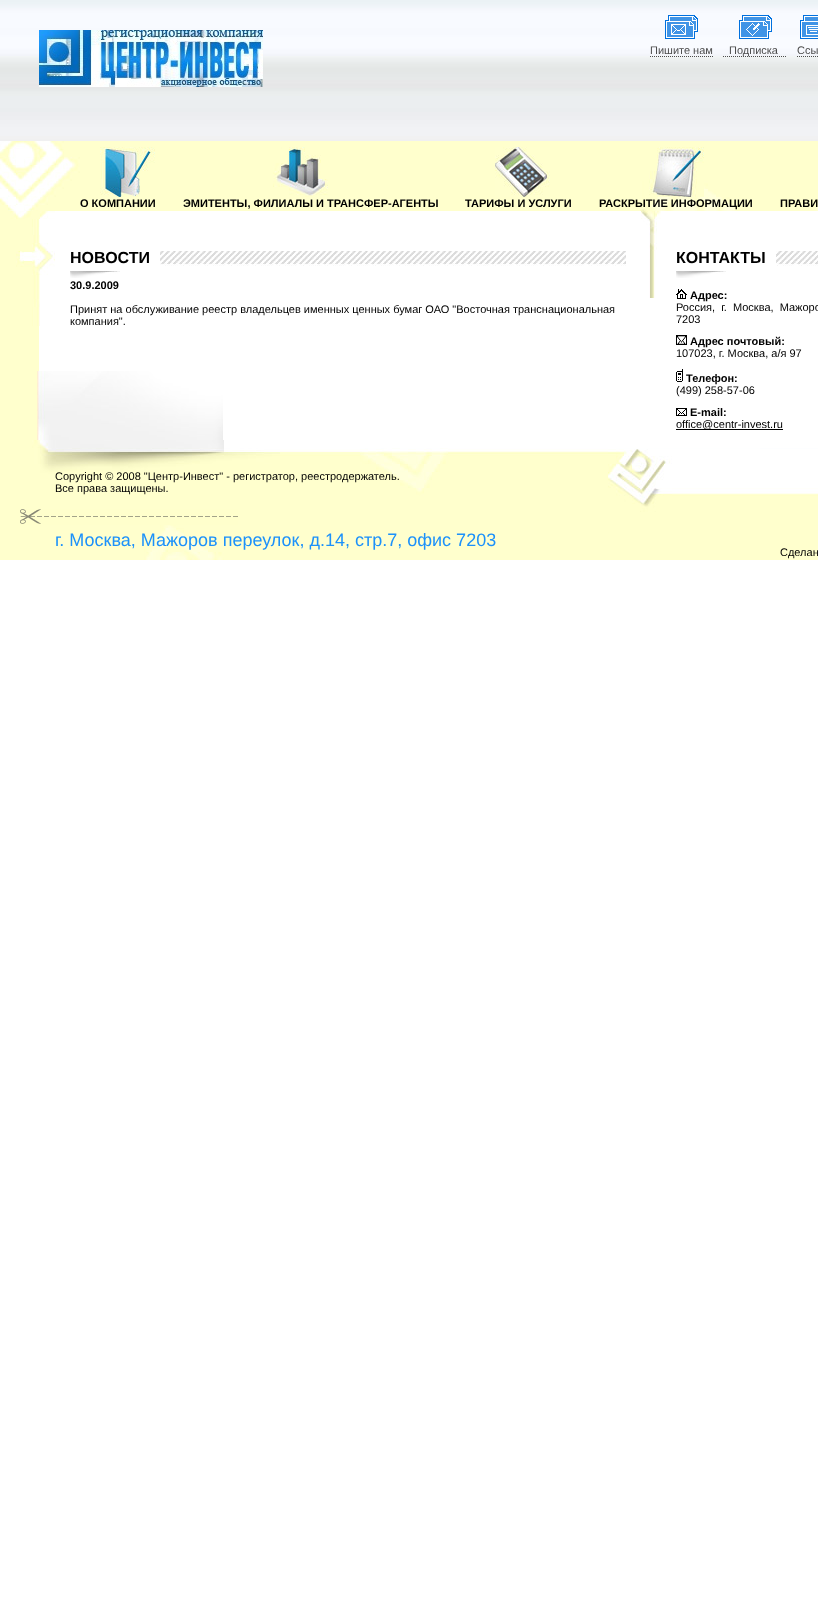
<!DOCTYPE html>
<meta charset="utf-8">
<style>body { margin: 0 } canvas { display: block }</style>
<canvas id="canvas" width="818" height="1611"></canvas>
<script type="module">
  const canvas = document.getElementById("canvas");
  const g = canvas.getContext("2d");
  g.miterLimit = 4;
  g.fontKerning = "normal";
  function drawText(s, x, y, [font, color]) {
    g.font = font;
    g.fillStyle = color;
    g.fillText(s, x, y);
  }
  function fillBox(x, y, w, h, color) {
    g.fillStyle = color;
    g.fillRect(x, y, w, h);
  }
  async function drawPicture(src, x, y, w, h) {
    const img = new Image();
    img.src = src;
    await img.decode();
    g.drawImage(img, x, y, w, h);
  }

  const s1 = ["11px Liberation Sans", "#4C4C4C"];
  const s2 = ["bold 11px Liberation Sans", "#000000"];
  const s3 = ["bold 16px Liberation Sans", "#000000"];
  const s4 = ["11px Liberation Sans", "#000000"];
  const s5 = ["18px Liberation Sans", "#1C91FA"];

  fillBox(0, 0, 818, 1611, "#FFFFFF");
  await drawPicture("pic1.png", 0, 0, 818, 141);
  await drawPicture("pic2.png", 39, 30, 224, 57);
  await drawPicture("pic3.png", 665, 15, 33, 24);
  drawText("Пишите нам", 650, 54, s1);
  g.beginPath();
  g.moveTo(650, 56.5);
  g.lineTo(713, 56.5);
  g.strokeStyle = "#4C4C4C";
  g.setLineDash([1, 1]);
  g.stroke();
  await drawPicture("pic4.png", 739, 15, 33, 24);
  g.beginPath();
  g.moveTo(723, 56.5);
  g.lineTo(787, 56.5);
  g.stroke();
  drawText("Подписка", 729, 54, s1);
  await drawPicture("pic5.png", 800, 15, 18, 24);
  drawText("Ссы", 797, 54, s1);
  g.beginPath();
  g.moveTo(797, 56.5);
  g.lineTo(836, 56.5);
  g.stroke();
  fillBox(0, 211, 39, 229, "#FFFFCD");
  await drawPicture("pic6.png", 37, 371, 186, 69);
  await drawPicture("pic7.png", 0, 141, 818, 70);
  await drawPicture("pic8.png", 640, 168, 178, 43);
  await drawPicture("pic9.png", 100, 147, 55, 50);
  drawText("О КОМПАНИИ", 80, 207, s2);
  await drawPicture("pic10.png", 273, 147, 55, 50);
  drawText("ЭМИТЕНТЫ, ФИЛИАЛЫ И ТРАНСФЕР-АГЕНТЫ", 183, 207, s2);
  await drawPicture("pic11.png", 495, 147, 55, 50);
  drawText("ТАРИФЫ И УСЛУГИ", 465, 207, s2);
  await drawPicture("pic12.png", 649, 147, 55, 50);
  drawText("РАСКРЫТИЕ ИНФОРМАЦИИ", 599, 207, s2);
  drawText("ПРАВИ", 780, 207, s2);
  await drawPicture("pic13.png", 10, 211, 45, 115);
  await drawPicture("pic14.png", 160, 251, 466, 15);
  await drawPicture("pic15.png", 70, 271, 50, 7);
  drawText("НОВОСТИ", 70, 263, s3);
  drawText("30.9.2009", 70, 289, s2);
  drawText("Принят на обслуживание реестр владельцев именных ценных бумаг ОАО \"Восточная транснациональная", 70, 313, s4);
  drawText("компания\".", 70, 325, s4);
  await drawPicture("pic16.png", 641, 211, 20, 87);
  await drawPicture("pic17.png", 776, 251, 42, 15);
  await drawPicture("pic18.png", 676, 271, 50, 7);
  drawText("КОНТАКТЫ", 676, 263, s3);
  await drawPicture("pic19.png", 676, 289, 11, 10);
  drawText("Адрес:", 690, 299, s2);
  g.wordSpacing = "3px";
  drawText("Россия, г. Москва, Мажоро", 676, 311, s4);
  g.wordSpacing = "0px";
  drawText("7203", 676, 323, s4);
  await drawPicture("pic20.png", 676, 335, 11, 10);
  drawText("Адрес почтовый:", 690, 345, s2);
  drawText("107023, г. Москва, а/я 97", 676, 357, s4);
  await drawPicture("pic21.png", 676, 369, 7, 13);
  drawText("Телефон:", 686, 382, s2);
  drawText("(499) 258-57-06", 676, 394, s4);
  await drawPicture("pic22.png", 676, 408, 11, 8);
  drawText("E-mail:", 690, 416, s2);
  fillBox(676, 429, 107, 1, "#000000");
  drawText("office@centr-invest.ru", 676, 428, s4);
  await drawPicture("pic23.png", 0, 440, 818, 120);
  await drawPicture("pic24.png", 608, 449, 210, 63);
  drawText("Copyright © 2008 \"Центр-Инвест\" - регистратор, реестродержатель.", 55, 480, s4);
  drawText("Все права защищены.", 55, 492, s4);
  await drawPicture("pic25.png", 20, 509, 218, 16);
  drawText("г. Москва, Мажоров переулок, д.14, стр.7, офис 7203", 55, 546, s5);
  drawText("Сделан", 780, 556, s4);
</script>
